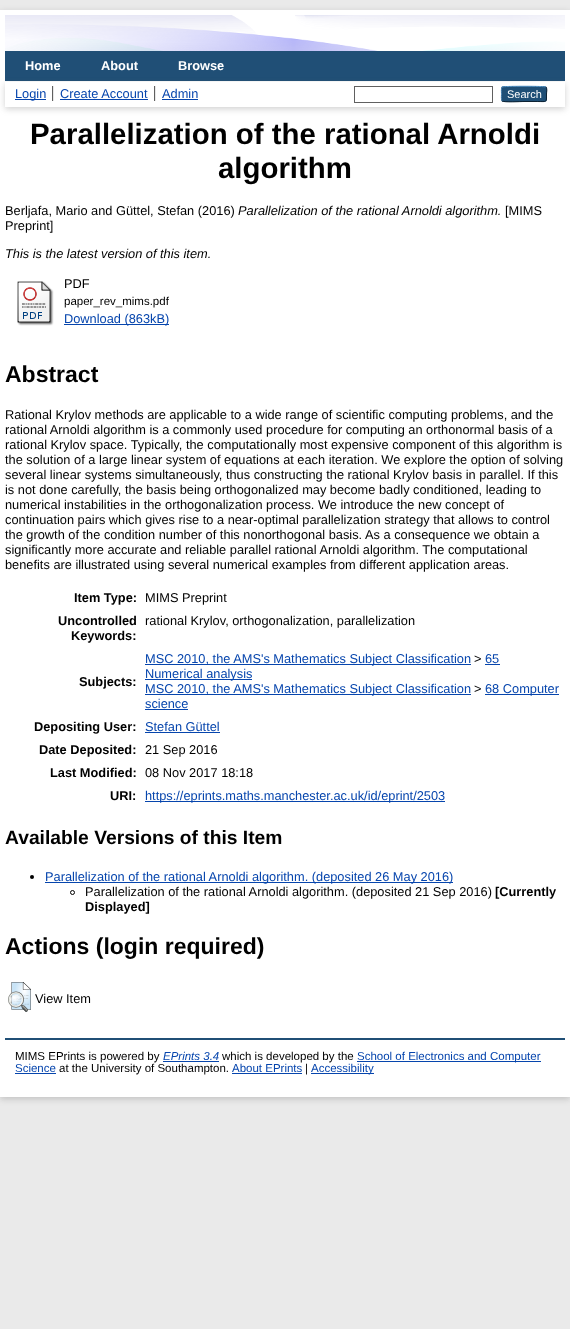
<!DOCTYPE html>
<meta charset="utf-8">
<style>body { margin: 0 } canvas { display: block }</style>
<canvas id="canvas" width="570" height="1329"></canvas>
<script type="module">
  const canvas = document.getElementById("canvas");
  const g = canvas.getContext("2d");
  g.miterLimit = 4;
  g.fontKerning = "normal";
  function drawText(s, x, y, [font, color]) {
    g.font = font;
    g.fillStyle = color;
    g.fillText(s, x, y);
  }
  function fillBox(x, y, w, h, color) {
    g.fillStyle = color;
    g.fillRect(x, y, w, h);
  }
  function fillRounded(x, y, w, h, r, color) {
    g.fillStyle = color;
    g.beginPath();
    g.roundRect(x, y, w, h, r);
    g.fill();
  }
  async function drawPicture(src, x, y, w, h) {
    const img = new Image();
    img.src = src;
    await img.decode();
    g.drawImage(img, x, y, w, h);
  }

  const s1 = ["bold 12.8px Liberation Sans", "#FFFFFF"];
  const s2 = ["12.8px Liberation Sans", "#0645AD"];
  const s3 = ["11px Liberation Sans", "#FFFFFF"];
  const s4 = ["bold 29.4px Liberation Sans", "#000000"];
  const s5 = ["12.8px Liberation Sans", "#000000"];
  const s6 = ["italic 12.8px Liberation Sans", "#000000"];
  const s7 = ["11.5px Liberation Sans", "#000000"];
  const s8 = ["bold 23px Liberation Sans", "#000000"];
  const s9 = ["bold 12.8px Liberation Sans", "#000000"];
  const s10 = ["bold 19.25px Liberation Sans", "#000000"];
  const s11 = ["italic 11.5px Liberation Sans", "#0645AD"];
  const s12 = ["11.5px Liberation Sans", "#0645AD"];

  fillBox(0, 0, 570, 1329, "#EAEAEA");
  g.fillStyle = "rgba(100, 100, 100, 0.3)";
  g.filter = "blur(3px)";
  g.beginPath();
  g.rect(0, 12, 570, 1087);
  g.fill();
  g.filter = "none";
  fillBox(0, 10, 570, 1087, "#FFFFFF");
  await drawPicture("pic1.png", 5, 15, 560, 36);
  fillBox(5, 51, 560, 30, "#204F76");
  drawText("Home", 25, 70, s1);
  drawText("About", 101, 70, s1);
  drawText("Browse", 178, 70, s1);
  g.fillStyle = "rgba(100, 100, 100, 0.3)";
  g.filter = "blur(3px)";
  g.beginPath();
  g.rect(5, 84, 560, 25);
  g.fill();
  g.filter = "none";
  fillBox(5, 82, 560, 25, "#FFFFFF");
  fillBox(52, 86, 1, 15, "#606060");
  fillBox(15, 99, 31, 1, "#0645AD");
  drawText("Login", 15, 98, s2);
  fillBox(154, 86, 1, 15, "#606060");
  fillBox(53, 86, 1, 15, "#E8E8E8");
  drawText("Create Account", 60, 98, s2);
  fillBox(60, 99, 88, 1, "#0645AD");
  fillBox(155, 86, 1, 15, "#E8E8E8");
  drawText("Admin", 162, 98, s2);
  fillBox(162, 99, 36, 1, "#0645AD");
  g.strokeStyle = "#606060";
  g.strokeRect(354.5, 86.5, 138, 16);
  fillRounded(501, 86, 46, 16, 3, "#1F4F76");
  g.beginPath();
  g.moveTo(502, 87);
  g.bezierCurveTo(503.5, 86, 544.5, 86, 546, 87);
  g.strokeStyle = "#5B97C7";
  g.stroke();
  g.beginPath();
  g.moveTo(546, 87);
  g.bezierCurveTo(547.5, 89, 546.5, 92, 546.5, 94);
  g.bezierCurveTo(546.5, 103, 547, 101.5, 537.5, 101.5);
  g.lineTo(524, 101.5);
  g.bezierCurveTo(520.5, 101.5, 504, 102.5, 502, 101);
  g.strokeStyle = "#0D2131";
  g.stroke();
  g.beginPath();
  g.moveTo(502, 101);
  g.bezierCurveTo(501, 99.5, 501.5, 95.5, 501.5, 94);
  g.bezierCurveTo(501.5, 92.5, 501, 88.5, 502, 87);
  g.strokeStyle = "#5287B3";
  g.stroke();
  drawText("Search", 507, 98, s3);
  drawText("Parallelization of the rational Arnoldi", 30, 144, s4);
  drawText("algorithm", 218, 178, s4);
  drawText("Berljafa, Mario and Güttel, Stefan (2016)", 5, 215, s5);
  drawText("Parallelization of the rational Arnoldi algorithm.", 238, 215, s6);
  drawText("[MIMS", 505, 215, s5);
  drawText("Preprint]", 5, 230, s5);
  drawText("This is the latest version of this item.", 5, 258, s6);
  await drawPicture("pic2.png", 17, 281, 37, 45);
  drawText("PDF", 64, 288, s5);
  drawText("paper_rev_mims.pdf", 64, 305, s7);
  fillBox(64, 324, 105, 1, "#0645AD");
  drawText("Download (863kB)", 64, 323, s2);
  drawText("Abstract", 5, 382, s8);
  drawText("Rational Krylov methods are applicable to a wide range of scientific computing problems, and the", 5, 419, s5);
  drawText("rational Arnoldi algorithm is a commonly used procedure for computing an orthonormal basis of a", 5, 434, s5);
  drawText("rational Krylov space. Typically, the computationally most expensive component of this algorithm is", 5, 449, s5);
  drawText("the solution of a large linear system of equations at each iteration. We explore the option of solving", 5, 464, s5);
  drawText("several linear systems simultaneously, thus constructing the rational Krylov basis in parallel. If this", 5, 479, s5);
  drawText("is not done carefully, the basis being orthogonalized may become badly conditioned, leading to", 5, 494, s5);
  drawText("numerical instabilities in the orthogonalization process. We introduce the new concept of", 5, 509, s5);
  drawText("continuation pairs which gives rise to a near-optimal parallelization strategy that allows to control", 5, 524, s5);
  drawText("the growth of the condition number of this nonorthogonal basis. As a consequence we obtain a", 5, 539, s5);
  drawText("significantly more accurate and reliable parallel rational Arnoldi algorithm. The computational", 5, 554, s5);
  drawText("benefits are illustrated using several numerical examples from different application areas.", 5, 569, s5);
  drawText("Item Type:", 74, 602, s9);
  drawText("MIMS Preprint", 145, 602, s5);
  drawText("Uncontrolled", 58, 625, s9);
  drawText("Keywords:", 71, 640, s9);
  drawText("rational Krylov, orthogonalization, parallelization", 145, 625, s5);
  drawText("Subjects:", 79, 686, s9);
  fillBox(145, 664, 326, 1, "#0645AD");
  drawText("MSC 2010, the AMS's Mathematics Subject Classification", 145, 663, s2);
  drawText(">", 474, 663, s5);
  drawText("65", 485, 663, s2);
  fillBox(485, 664, 15, 1, "#0645AD");
  fillBox(145, 679, 107, 1, "#0645AD");
  drawText("Numerical analysis", 145, 678, s2);
  fillBox(145, 694, 326, 1, "#0645AD");
  drawText("MSC 2010, the AMS's Mathematics Subject Classification", 145, 693, s2);
  drawText(">", 474, 693, s5);
  fillBox(485, 694, 74, 1, "#0645AD");
  drawText("68 Computer", 485, 693, s2);
  drawText("science", 145, 708, s2);
  fillBox(145, 709, 43, 1, "#0645AD");
  drawText("Depositing User:", 34, 731, s9);
  drawText("Stefan Güttel", 145, 731, s2);
  fillBox(145, 732, 75, 1, "#0645AD");
  drawText("Date Deposited:", 39, 754, s9);
  drawText("21 Sep 2016", 145, 754, s5);
  drawText("Last Modified:", 50, 777, s9);
  drawText("08 Nov 2017 18:18", 145, 777, s5);
  drawText("URI:", 110, 800, s9);
  fillBox(145, 801, 300, 1, "#0645AD");
  drawText("https://eprints.maths.manchester.ac.uk/id/eprint/2503", 145, 800, s2);
  drawText("Available Versions of this Item", 5, 844, s10);
  g.beginPath();
  g.arc(32, 877, 2, 0, Math.PI * 2);
  g.fill();
  fillBox(45, 882, 408, 1, "#0645AD");
  drawText("Parallelization of the rational Arnoldi algorithm. (deposited 26 May 2016)", 45, 881, s2);
  g.beginPath();
  g.arc(72.5, 892.5, 2, 0, Math.PI * 2);
  g.strokeStyle = "#000000";
  g.stroke();
  drawText("Parallelization of the rational Arnoldi algorithm. (deposited 21 Sep 2016)", 85, 896, s5);
  drawText("[Currently", 495, 896, s9);
  drawText("Displayed]", 85, 911, s9);
  drawText("Actions (login required)", 5, 954, s8);
  await drawPicture("pic3.png", 8, 982, 23, 30);
  drawText("View Item", 35, 1003, s5);
  fillBox(5, 1038, 560, 2, "#204F76");
  drawText("MIMS EPrints is powered by", 15, 1060, s7);
  drawText("EPrints 3.4", 163, 1060, s11);
  fillBox(163, 1061, 56, 1, "#0645AD");
  drawText("which is developed by the", 222, 1060, s7);
  fillBox(357, 1061, 184, 1, "#0645AD");
  drawText("School of Electronics and Computer", 357, 1060, s12);
  drawText("Science", 15, 1072, s12);
  fillBox(15, 1073, 41, 1, "#0645AD");
  drawText("at the University of Southampton.", 59, 1072, s7);
  drawText("About EPrints", 232, 1072, s12);
  fillBox(232, 1073, 70, 1, "#0645AD");
  drawText("|", 305, 1072, s7);
  fillBox(311, 1073, 63, 1, "#0645AD");
  drawText("Accessibility", 311, 1072, s12);
</script>
